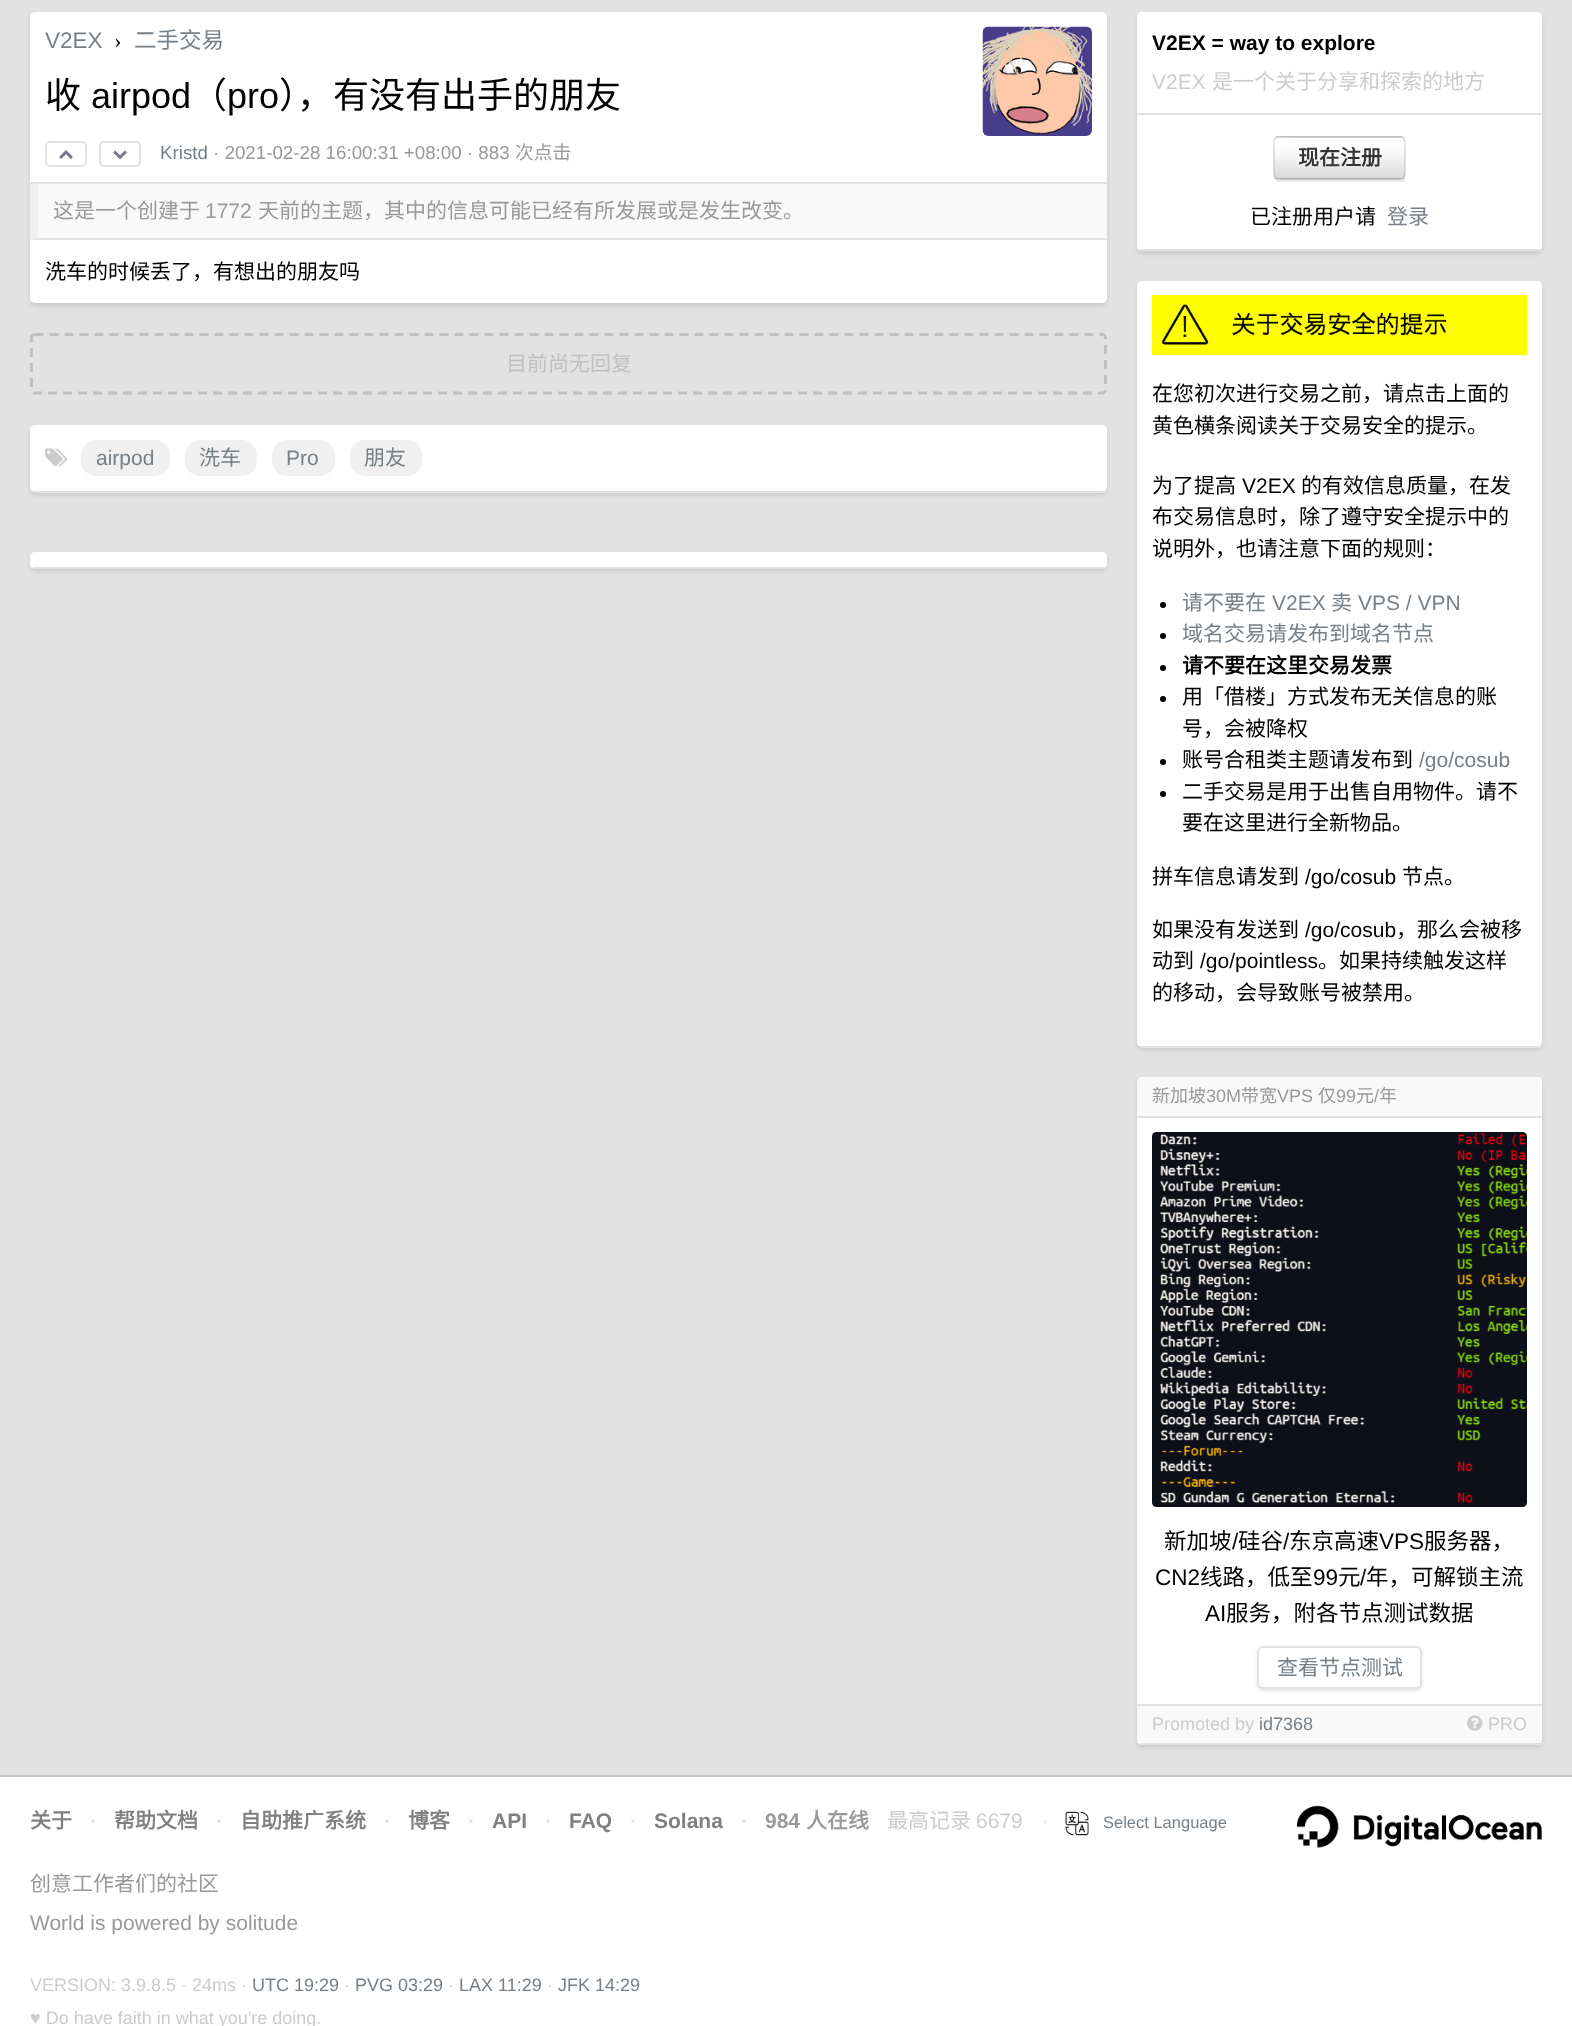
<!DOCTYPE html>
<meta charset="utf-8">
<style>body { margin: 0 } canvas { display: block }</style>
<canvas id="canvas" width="1572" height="2026"></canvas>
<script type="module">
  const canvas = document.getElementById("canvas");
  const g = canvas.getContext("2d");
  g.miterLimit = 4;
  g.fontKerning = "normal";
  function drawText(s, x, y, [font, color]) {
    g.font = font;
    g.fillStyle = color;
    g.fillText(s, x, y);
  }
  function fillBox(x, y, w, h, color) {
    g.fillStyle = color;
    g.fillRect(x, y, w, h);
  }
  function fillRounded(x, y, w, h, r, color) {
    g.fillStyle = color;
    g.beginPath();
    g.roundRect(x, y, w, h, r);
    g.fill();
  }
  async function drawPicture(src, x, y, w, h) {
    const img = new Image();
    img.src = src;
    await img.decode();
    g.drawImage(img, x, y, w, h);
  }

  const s1 = ["22.5px Liberation Sans", "#778087"];
  const s2 = ["22.5px Liberation Serif", "#000000"];
  const s3 = ["22.5px Noto Sans CJK SC", "#778087"];
  const s4 = ["36px Noto Sans CJK SC", "#000000"];
  const s5 = ["36px Liberation Sans", "#000000"];
  const s6 = ["18.75px Liberation Sans", "#778087"];
  const s7 = ["18.75px Liberation Sans", "#999999"];
  const s8 = ["18.75px Noto Sans CJK SC", "#999999"];
  const s9 = ["21px Noto Sans CJK SC", "#999999"];
  const s10 = ["21px Liberation Sans", "#999999"];
  const s11 = ["21px Noto Sans CJK SC", "#000000"];
  const s12 = ["21px Noto Sans CJK SC", "#C0C0C0"];
  const s13 = ["21px Liberation Sans", "#778087"];
  const s14 = ["21px Noto Sans CJK SC", "#778087"];
  const s15 = ["bold 21px Liberation Sans", "#000000"];
  const s16 = ["21px Liberation Sans", "#CCCCCC"];
  const s17 = ["21px Noto Sans CJK SC", "#CCCCCC"];
  const s18 = ["bold 21px Noto Sans CJK SC", "#333333"];
  const s19 = ["21px Liberation Sans", "#000000"];
  const s20 = ["bold 21px Noto Sans CJK SC", "#000000"];
  const s21 = ["18px Noto Sans CJK SC", "#999999"];
  const s22 = ["18px Liberation Sans", "#999999"];
  const s23 = ["22.5px Noto Sans CJK SC", "#000000"];
  const s24 = ["22.5px Liberation Sans", "#000000"];
  const s25 = ["18px Liberation Sans", "#CCCCCC"];
  const s26 = ["18px Liberation Sans", "#778087"];
  const s27 = ["bold 21px Noto Sans CJK SC", "#808080"];
  const s28 = ["bold 21px Liberation Sans", "#E2E2E2"];
  const s29 = ["bold 21px Liberation Sans", "#808080"];
  const s30 = ["bold 21px Liberation Sans", "#999999"];
  const s31 = ["bold 21px Noto Sans CJK SC", "#999999"];
  const s32 = ["21px Liberation Sans", "#E2E2E2"];
  const s33 = ["16.5px Liberation Sans", "#778087"];

  fillBox(0, 0, 1572, 2026, "#FFFFFF");
  fillBox(0, 0, 1572, 1775, "#E2E2E2");
  g.fillStyle = "rgba(0, 0, 0, 0.1)";
  g.filter = "blur(2px)";
  g.beginPath();
  g.roundRect(30, 15, 1077, 291, 5);
  g.fill();
  g.filter = "none";
  fillRounded(30, 12, 1077, 291, 5, "#FFFFFF");
  fillBox(30, 184, 1077, 56, "#F9F9F9");
  g.fillStyle = "#E2E2E2";
  g.beginPath();
  g.moveTo(1107, 240);
  g.lineTo(30, 240);
  g.lineTo(38, 238);
  g.lineTo(1107, 238);
  g.closePath();
  g.fill();
  g.fillStyle = "#F0F0F0";
  g.beginPath();
  g.moveTo(30, 240);
  g.lineTo(30, 183);
  g.lineTo(38, 183);
  g.lineTo(38, 238);
  g.closePath();
  g.fill();
  fillBox(30, 182, 1077, 2, "#E2E2E2");
  drawText("V2EX", 45, 48, s1);
  drawText("›", 114, 48, s2);
  drawText("二手交易", 134, 48, s3);
  await drawPicture("pic1.png", 982, 26, 110, 110);
  drawText("收", 45, 108, s4);
  drawText("airpod", 91, 108, s5);
  drawText("（", 191, 108, s4);
  drawText("pro", 227, 108, s5);
  drawText("），有没有出手的朋友", 279, 108, s4);
  g.beginPath();
  g.roundRect(46, 142, 40, 24, 4);
  g.strokeStyle = "#E2E2E2";
  g.lineWidth = 2;
  g.stroke();
  await drawPicture("pic2.png", 59, 150, 14, 9);
  g.beginPath();
  g.roundRect(100, 142, 40, 24, 4);
  g.stroke();
  await drawPicture("pic3.png", 113, 150, 14, 10);
  drawText("Kristd", 160, 159, s6);
  drawText("· 2021-02-28 16:00:31 +08:00 · 883", 213, 159, s7);
  drawText("次点击", 515, 159, s8);
  drawText("这是一个创建于", 53, 218, s9);
  drawText("1772", 205, 218, s10);
  drawText("天前的主题，其中的信息可能已经有所发展或是发生改变。", 258, 218, s9);
  drawText("洗车的时候丢了，有想出的朋友吗", 45, 279, s11);
  g.beginPath();
  g.moveTo(34.5, 334.5);
  g.lineTo(1102.5, 334.5);
  g.bezierCurveTo(1104, 334.5, 1105.5, 336, 1105.5, 337.5);
  g.lineTo(1105.5, 390);
  g.bezierCurveTo(1105.5, 391.5, 1104, 393, 1102.5, 393);
  g.lineTo(34.5, 393);
  g.bezierCurveTo(33, 393, 31.5, 391.5, 31.5, 390);
  g.lineTo(31.5, 337.5);
  g.bezierCurveTo(31.5, 336, 33, 334.5, 34.5, 334.5);
  g.closePath();
  g.strokeStyle = "#C0C0C0";
  g.lineWidth = 3;
  g.setLineDash([9, 6]);
  g.stroke();
  drawText("目前尚无回复", 506, 371, s12);
  g.fillStyle = "rgba(0, 0, 0, 0.1)";
  g.filter = "blur(2px)";
  g.beginPath();
  g.roundRect(30, 428, 1077, 67, 5);
  g.fill();
  g.filter = "none";
  fillRounded(30, 425, 1077, 67, 5, "#FFFFFF");
  fillBox(33, 491, 1073, 2, "#E2E2E2");
  await drawPicture("pic4.png", 45, 448, 23, 19);
  fillRounded(81, 440, 89, 36, 15, "#F0F0F0");
  drawText("airpod", 96, 465, s13);
  fillRounded(185, 440, 72, 36, 15, "#F0F0F0");
  drawText("洗车", 199, 465, s14);
  fillRounded(272, 440, 63, 36, 15, "#F0F0F0");
  drawText("Pro", 286, 465, s13);
  fillRounded(350, 440, 72, 36, 15, "#F0F0F0");
  drawText("朋友", 364, 465, s14);
  g.fillStyle = "rgba(0, 0, 0, 0.1)";
  g.filter = "blur(2px)";
  g.beginPath();
  g.roundRect(30, 555, 1077, 17, 5);
  g.fill();
  g.filter = "none";
  fillRounded(30, 552, 1077, 17, 5, "#FFFFFF");
  fillBox(33, 567, 1073, 2, "#E2E2E2");
  g.fillStyle = "rgba(0, 0, 0, 0.1)";
  g.filter = "blur(2px)";
  g.beginPath();
  g.roundRect(1137, 15, 405, 239, 5);
  g.fill();
  g.filter = "none";
  fillRounded(1137, 12, 405, 239, 5, "#FFFFFF");
  fillBox(1140, 249, 401, 2, "#E2E2E2");
  fillBox(1137, 113, 405, 2, "#E2E2E2");
  drawText("V2EX = way to explore", 1152, 50, s15);
  drawText("V2EX", 1152, 89, s16);
  drawText("是一个关于分享和探索的地方", 1212, 89, s17);
  g.fillStyle = "#ECECED";
  g.beginPath();
  g.moveTo(1274, 178);
  g.bezierCurveTo(1274, 180, 1276, 182, 1279, 182);
  g.lineTo(1401, 182);
  g.bezierCurveTo(1404, 182, 1406, 180, 1406, 177);
  g.lineTo(1406, 143);
  g.lineTo(1405, 141);
  g.lineTo(1406, 170);
  g.bezierCurveTo(1406, 173, 1407, 180, 1401, 180);
  g.lineTo(1278, 180);
  g.bezierCurveTo(1276, 180, 1275, 179, 1274, 178);
  g.closePath();
  g.fill();
  fillRounded(1274, 137, 132, 43, 5, "#FFFFFF");
  await drawPicture("pic5.png", 1273, 136, 133, 44);
  g.beginPath();
  g.moveTo(1403.5, 178);
  g.bezierCurveTo(1403, 179, 1402, 179, 1401, 179);
  g.lineTo(1278, 179);
  g.bezierCurveTo(1277, 179, 1276, 179, 1275.5, 178);
  g.strokeStyle = "rgba(80, 80, 90, 0.35)";
  g.lineWidth = 1.5;
  g.setLineDash([]);
  g.stroke();
  g.beginPath();
  g.moveTo(1275.5, 178);
  g.bezierCurveTo(1273.5, 176, 1274, 171.5, 1274, 170);
  g.lineTo(1274, 158);
  g.bezierCurveTo(1274, 132, 1270, 137, 1298.5, 137);
  g.lineTo(1401, 137);
  g.bezierCurveTo(1406, 137.5, 1405, 144, 1405, 147);
  g.lineTo(1405, 164);
  g.bezierCurveTo(1405, 167, 1406, 175.5, 1403.5, 178);
  g.strokeStyle = "rgba(80, 80, 90, 0.2)";
  g.stroke();
  drawText("现在注册", 1298, 165, s18);
  drawText("已注册用户请", 1250, 224, s11);
  drawText("登录", 1387, 224, s14);
  g.fillStyle = "rgba(0, 0, 0, 0.1)";
  g.filter = "blur(2px)";
  g.beginPath();
  g.roundRect(1137, 284, 405, 766, 5);
  g.fill();
  g.filter = "none";
  fillRounded(1137, 281, 405, 766, 5, "#FFFFFF");
  fillBox(1140, 1046, 401, 2, "#E2E2E2");
  await drawPicture("pic6.png", 1152, 295, 375, 60);
  drawText("在您初次进行交易之前，请点击上面的", 1152, 401, s11);
  drawText("黄色横条阅读关于交易安全的提示。", 1152, 433, s11);
  drawText("为了提高", 1152, 493, s11);
  drawText("V2EX", 1242, 493, s19);
  drawText("的有效信息质量，在发", 1301, 493, s11);
  drawText("布交易信息时，除了遵守安全提示中的", 1152, 524, s11);
  drawText("说明外，也请注意下面的规则：", 1152, 556, s11);
  g.beginPath();
  g.arc(1163, 605, 3, 0, Math.PI * 2);
  g.fill();
  drawText("请不要在", 1182, 610, s14);
  drawText("V2EX", 1272, 610, s13);
  drawText("卖", 1331, 610, s14);
  drawText("VPS / VPN", 1358, 610, s13);
  g.fillStyle = "#000000";
  g.beginPath();
  g.arc(1163, 636, 3, 0, Math.PI * 2);
  g.fill();
  drawText("域名交易请发布到域名节点", 1182, 641, s14);
  g.fillStyle = "#000000";
  g.beginPath();
  g.arc(1163, 668, 3, 0, Math.PI * 2);
  g.fill();
  drawText("请不要在这里交易发票", 1182, 673, s20);
  g.beginPath();
  g.arc(1163, 699, 3, 0, Math.PI * 2);
  g.fill();
  drawText("用「借楼」方式发布无关信息的账", 1182, 704, s11);
  drawText("号，会被降权", 1182, 736, s11);
  g.beginPath();
  g.arc(1163, 762, 3, 0, Math.PI * 2);
  g.fill();
  drawText("账号合租类主题请发布到", 1182, 767, s11);
  drawText("/go/cosub", 1419, 767, s13);
  g.fillStyle = "#000000";
  g.beginPath();
  g.arc(1163, 794, 3, 0, Math.PI * 2);
  g.fill();
  drawText("二手交易是用于出售自用物件。请不", 1182, 799, s11);
  drawText("要在这里进行全新物品。", 1182, 830, s11);
  drawText("拼车信息请发到", 1152, 884, s11);
  drawText("/go/cosub", 1305, 884, s19);
  drawText("节点。", 1402, 884, s11);
  drawText("如果没有发送到", 1152, 937, s11);
  drawText("/go/cosub", 1305, 937, s19);
  drawText("，那么会被移", 1396, 937, s11);
  drawText("动到", 1152, 968, s11);
  drawText("/go/pointless", 1200, 968, s19);
  drawText("。如果持续触发这样", 1318, 968, s11);
  drawText("的移动，会导致账号被禁用。", 1152, 1000, s11);
  g.fillStyle = "rgba(0, 0, 0, 0.1)";
  g.filter = "blur(2px)";
  g.beginPath();
  g.roundRect(1137, 1080, 405, 668, 5);
  g.fill();
  g.filter = "none";
  fillRounded(1137, 1077, 405, 668, 5, "#FFFFFF");
  fillBox(1140, 1743, 401, 2, "#E2E2E2");
  g.fillStyle = "#F9F9F9";
  g.beginPath();
  g.roundRect(1137, 1077, 405, 41, [5, 5, 0, 0]);
  g.fill();
  fillBox(1137, 1116, 405, 2, "#E2E2E2");
  drawText("新加坡", 1152, 1102, s21);
  drawText("30M", 1206, 1102, s22);
  drawText("带宽", 1241, 1102, s21);
  drawText("VPS", 1277, 1102, s22);
  drawText("仅", 1318, 1102, s21);
  drawText("99", 1336, 1102, s22);
  drawText("元", 1356, 1102, s21);
  drawText("/", 1374, 1102, s22);
  drawText("年", 1379, 1102, s21);
  await drawPicture("pic7.png", 1152, 1132, 375, 375);
  drawText("新加坡", 1164, 1549, s23);
  drawText("/", 1232, 1549, s24);
  drawText("硅谷", 1238, 1549, s23);
  drawText("/", 1283, 1549, s24);
  drawText("东京高速", 1289, 1549, s23);
  drawText("VPS", 1379, 1549, s24);
  drawText("服务器，", 1424, 1549, s23);
  drawText("CN2", 1155, 1585, s24);
  drawText("线路，低至", 1200, 1585, s23);
  drawText("99", 1313, 1585, s24);
  drawText("元", 1338, 1585, s23);
  drawText("/", 1360, 1585, s24);
  drawText("年，可解锁主流", 1366, 1585, s23);
  drawText("AI", 1205, 1621, s24);
  drawText("服务，附各节点测试数据", 1226, 1621, s23);
  fillBox(1137, 1704, 405, 2, "#E2E2E2");
  g.fillStyle = "rgba(0, 0, 0, 0.1)";
  g.filter = "blur(1.5px)";
  g.beginPath();
  g.roundRect(1257, 1647, 165, 44, 6);
  g.fill();
  g.filter = "none";
  g.fillStyle = "#FFFFFF";
  g.beginPath();
  g.roundRect(1258, 1647, 163, 41, 5);
  g.fill();
  g.strokeStyle = "#E2E2E2";
  g.lineWidth = 2;
  g.stroke();
  drawText("查看节点测试", 1277, 1675, s14);
  g.fillStyle = "#F9F9F9";
  g.beginPath();
  g.roundRect(1137, 1706, 405, 37, [0, 0, 5, 5]);
  g.fill();
  drawText("Promoted by", 1152, 1730, s25);
  drawText("id7368", 1259, 1730, s26);
  await drawPicture("pic8.png", 1467, 1715, 16, 16);
  drawText("PRO", 1488, 1730, s25);
  fillBox(0, 1775, 1572, 2, "#C7C7C7");
  drawText("关于", 30, 1828, s27);
  drawText("·", 90, 1828, s28);
  drawText("帮助文档", 114, 1828, s27);
  drawText("·", 216, 1828, s28);
  drawText("自助推广系统", 240, 1828, s27);
  drawText("·", 384, 1828, s28);
  drawText("博客", 408, 1828, s27);
  drawText("·", 468, 1828, s28);
  drawText("API", 492, 1828, s29);
  drawText("·", 545, 1828, s28);
  drawText("FAQ", 569, 1828, s29);
  drawText("·", 630, 1828, s28);
  drawText("Solana", 654, 1828, s29);
  drawText("·", 741, 1828, s28);
  drawText("984", 765, 1828, s30);
  drawText("人在线", 806, 1828, s31);
  drawText("最高记录", 887, 1828, s17);
  drawText("6679", 976, 1828, s16);
  drawText("·", 1041, 1828, s32);
  await drawPicture("pic9.png", 1065, 1811, 24, 25);
  drawText("Select Language", 1103, 1828, s33);
  await drawPicture("pic10.png", 1296, 1805, 246, 43);
  drawText("创意工作者们的社区", 30, 1891, s9);
  drawText("World is powered by solitude", 30, 1930, s10);
  drawText("VERSION: 3.9.8.5 · 24ms ·", 30, 1991, s25);
  drawText("UTC 19:29", 252, 1991, s26);
  drawText("·", 344, 1991, s25);
  drawText("PVG 03:29", 355, 1991, s26);
  drawText("·", 448, 1991, s25);
  drawText("LAX 11:29", 459, 1991, s26);
  drawText("·", 547, 1991, s25);
  drawText("JFK 14:29", 558, 1991, s26);
  drawText("♥ Do have faith in what you're doing.", 30, 2024, s25);
</script>
